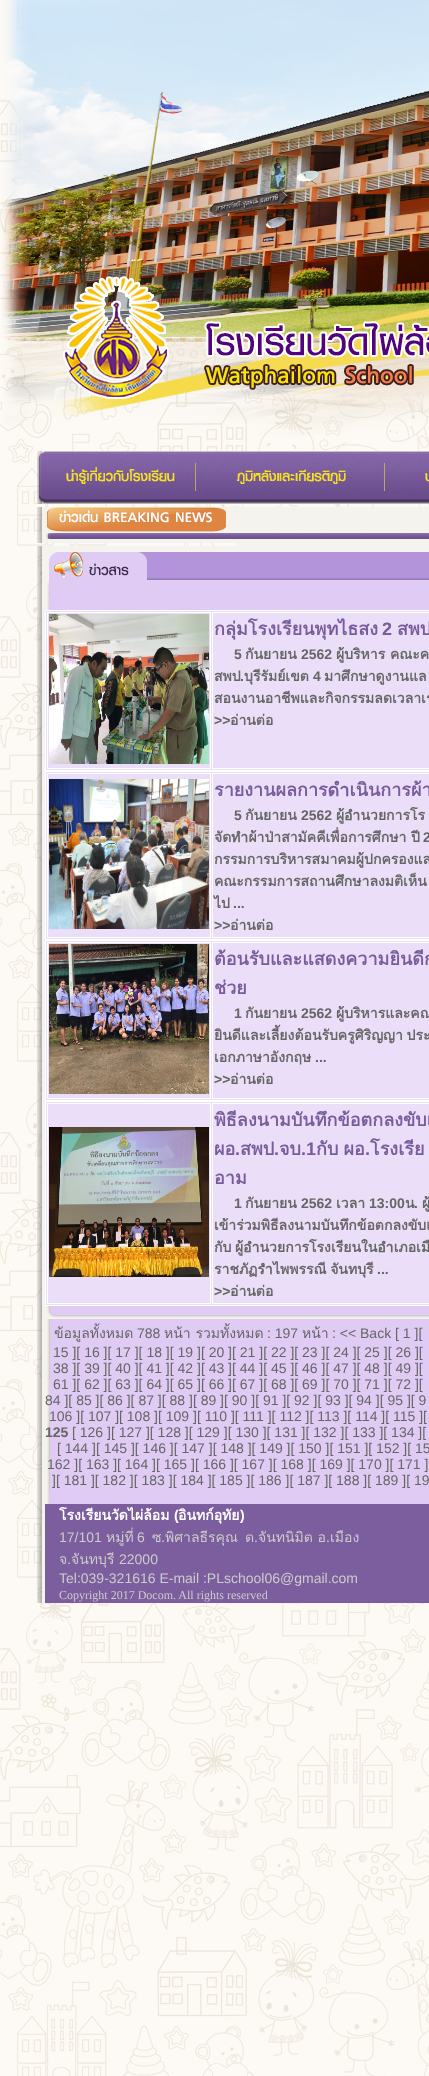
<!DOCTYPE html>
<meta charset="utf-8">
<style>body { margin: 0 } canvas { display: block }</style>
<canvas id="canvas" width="429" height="2076"></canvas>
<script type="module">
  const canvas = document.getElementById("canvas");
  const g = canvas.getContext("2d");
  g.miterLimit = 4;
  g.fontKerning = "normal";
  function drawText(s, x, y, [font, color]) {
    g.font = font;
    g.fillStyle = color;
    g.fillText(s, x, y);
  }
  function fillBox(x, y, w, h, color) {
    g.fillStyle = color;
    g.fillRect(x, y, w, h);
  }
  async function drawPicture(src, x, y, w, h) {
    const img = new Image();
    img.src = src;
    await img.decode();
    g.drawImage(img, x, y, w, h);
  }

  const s1 = ["bold 18px Loma", "#795C9C"];
  const s2 = ["bold 18px Liberation Sans", "#795C9C"];
  const s3 = ["bold 14px Liberation Sans", "#666666"];
  const s4 = ["bold 14px Loma", "#666666"];
  const s5 = ["14px Loma", "#666666"];
  const s6 = ["14px Liberation Sans", "#666666"];
  const s7 = ["bold 14px Loma", "#FFFFFF"];
  const s8 = ["bold 14px Liberation Sans", "#FFFFFF"];
  const s9 = ["14px Liberation Sans", "#CCCCCC"];
  const s10 = ["14px Loma", "#CCCCCC"];
  const s11 = ["12px Liberation Serif", "#CCCCCC"];

  fillBox(0, 0, 429, 2076, "#FFFFFF");
  await drawPicture("pic1.png", 0, 0, 429, 2076);
  await drawPicture("pic2.png", 2, 0, 427, 437);
  await drawPicture("pic3.png", 37, 451, 158, 53);
  await drawPicture("pic4.png", 195, 451, 189, 53);
  await drawPicture("pic5.png", 384, 451, 45, 53);
  await drawPicture("pic6.png", 37, 507, 200, 36);
  await drawPicture("pic7.png", 237, 507, 192, 39);
  await drawPicture("pic8.png", 37, 546, 10, 1057);
  await drawPicture("pic9.png", 47, 591, 382, 3);
  await drawPicture("pic10.png", 47, 546, 382, 45);
  await drawPicture("pic11.png", 47, 594, 382, 910);
  await drawPicture("pic12.png", 49, 1322, 1, 168);
  g.fillStyle = "#EBDEF8";
  g.beginPath();
  g.rect(45.5, 610.5, 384, 160);
  g.fill();
  g.strokeStyle = "#FFFFFF";
  g.stroke();
  g.strokeRect(47.5, 612.5, 163, 156);
  await drawPicture("pic13.png", 49, 614, 160, 150);
  g.strokeRect(212.5, 612.5, 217, 156);
  drawText("กลุ่มโรงเรียนพุทไธสง", 214, 635, s1);
  drawText("2", 382, 635, s2);
  drawText("สพป", 397, 635, s1);
  drawText("5", 234, 659, s3);
  drawText("กันยายน", 245, 659, s4);
  drawText("2562", 301, 659, s3);
  drawText("ผู้บริหาร คณะค", 336, 659, s4);
  drawText("สพป", 214, 681, s4);
  drawText(".", 240, 681, s3);
  drawText("บุรีรัมย์เขต", 244, 681, s4);
  drawText("4", 313, 681, s3);
  drawText("มาศึกษาดูงานแล", 324, 681, s4);
  drawText("สอนงานอาชีพและกิจกรรมลดเวลาเร", 214, 703, s4);
  drawText(">>", 214, 725, s3);
  drawText("อ่านต่อ", 230, 725, s4);
  await drawPicture("pic14.png", 49, 1306, 1, 16);
  g.fillStyle = "#EBDEF8";
  g.beginPath();
  g.rect(45.5, 771.5, 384, 168);
  g.fill();
  g.stroke();
  g.strokeRect(47.5, 773.5, 163, 164);
  await drawPicture("pic15.png", 49, 779, 160, 150);
  g.strokeRect(212.5, 773.5, 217, 164);
  drawText("รายงานผลการดำเนินการผ้า", 214, 796, s1);
  drawText("5", 234, 820, s3);
  drawText("กันยายน", 245, 820, s4);
  drawText("2562", 301, 820, s3);
  drawText("ผู้อำนวยการโร", 336, 820, s4);
  drawText("จัดทำผ้าป่าสามัคคีเพื่อการศึกษา ปี", 214, 842, s4);
  drawText("2", 423, 842, s3);
  drawText("กรรมการบริหารสมาคมผู้ปกครองแล", 214, 864, s4);
  g.wordSpacing = "-1px";
  drawText("คณะกรรมการสถานศึกษาลงมติเห็น", 214, 886, s4);
  g.wordSpacing = "0px";
  drawText("ไป", 214, 908, s4);
  drawText("...", 233, 908, s3);
  drawText(">>", 214, 930, s3);
  drawText("อ่านต่อ", 230, 930, s4);
  g.fillStyle = "#EBDEF8";
  g.beginPath();
  g.rect(45.5, 940.5, 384, 160);
  g.fill();
  g.stroke();
  g.strokeRect(47.5, 942.5, 163, 156);
  await drawPicture("pic16.png", 49, 944, 160, 150);
  g.strokeRect(212.5, 942.5, 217, 156);
  g.wordSpacing = "-1px";
  drawText("ต้อนรับและแสดงความยินดีก", 214, 965, s1);
  g.wordSpacing = "0px";
  drawText("ช่วย", 214, 994, s1);
  drawText("1", 234, 1018, s3);
  drawText("กันยายน", 245, 1018, s4);
  drawText("2562", 301, 1018, s3);
  drawText("ผู้บริหารและคณ", 336, 1018, s4);
  g.wordSpacing = "-1px";
  drawText("ยินดีและเลี้ยงต้อนรับครูศิริญญา ประ", 214, 1040, s4);
  g.wordSpacing = "0px";
  drawText("เอกภาษาอังกฤษ", 214, 1062, s4);
  drawText("...", 315, 1062, s3);
  drawText(">>", 214, 1084, s3);
  drawText("อ่านต่อ", 230, 1084, s4);
  g.fillStyle = "#EBDEF8";
  g.beginPath();
  g.rect(45.5, 1101.5, 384, 204);
  g.fill();
  g.stroke();
  g.strokeRect(47.5, 1103.5, 163, 200);
  await drawPicture("pic17.png", 49, 1127, 160, 150);
  g.strokeRect(212.5, 1103.5, 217, 200);
  drawText("พิธีลงนามบันทึกข้อตกลงขับเ", 214, 1126, s1);
  drawText("สพป", 240, 1155, s1);
  drawText(".1", 301, 1155, s2);
  g.wordSpacing = "-1px";
  drawText("กับ ผอ", 316, 1155, s1);
  g.wordSpacing = "0px";
  drawText("โรงเรีย", 370, 1155, s1);
  drawText("ผอ", 214, 1155, s1);
  drawText(".", 235, 1155, s2);
  drawText(".", 274, 1155, s2);
  drawText("จบ", 279, 1155, s1);
  drawText(".", 365, 1155, s2);
  drawText("อาม", 214, 1184, s1);
  drawText("1", 234, 1208, s3);
  drawText("กันยายน", 245, 1208, s4);
  drawText("2562", 301, 1208, s3);
  drawText("เวลา", 336, 1208, s4);
  drawText("13:00", 369, 1208, s3);
  drawText("น", 405, 1208, s4);
  drawText(".", 414, 1208, s3);
  drawText("ผู้", 422, 1208, s4);
  g.wordSpacing = "-1px";
  drawText("เข้าร่วมพิธีลงนามบันทึกข้อตกลงขับเ", 214, 1230, s4);
  drawText("กับ ผู้อำนวยการโรงเรียนในอำเภอเมื", 214, 1252, s4);
  drawText("ราชภัฏรำไพพรรณี จันทบุรี", 214, 1274, s4);
  g.wordSpacing = "0px";
  drawText("...", 377, 1274, s3);
  drawText(">>", 214, 1296, s3);
  drawText("อ่านต่อ", 230, 1296, s4);
  await drawPicture("pic18.png", 47, 1310, 382, 9);
  drawText("ข้อมูลทั้งหมด", 54, 1338, s5);
  drawText("788", 137, 1338, s6);
  drawText("หน้า รวมทั้งหมด", 164, 1338, s5);
  drawText(": 197", 267, 1338, s6);
  drawText("หน้า", 302, 1338, s5);
  drawText(": << Back [ 1 ][", 332, 1338, s6);
  drawText("15 ][ 16 ][ 17 ][ 18 ][ 19 ][ 20 ][ 21 ][ 22 ][ 23 ][ 24 ][ 25 ][ 26 ][", 53, 1357, s6);
  drawText("38 ][ 39 ][ 40 ][ 41 ][ 42 ][ 43 ][ 44 ][ 45 ][ 46 ][ 47 ][ 48 ][ 49 ][", 53, 1373, s6);
  drawText("61 ][ 62 ][ 63 ][ 64 ][ 65 ][ 66 ][ 67 ][ 68 ][ 69 ][ 70 ][ 71 ][ 72 ][", 53, 1389, s6);
  drawText("84 ][ 85 ][ 86 ][ 87 ][ 88 ][ 89 ][ 90 ][ 91 ][ 92 ][ 93 ][ 94 ][ 95 ][ 9", 45, 1405, s6);
  drawText("106 ][ 107 ][ 108 ][ 109 ][ 110 ][ 111 ][ 112 ][ 113 ][ 114 ][ 115 ][", 49, 1421, s6);
  drawText("125", 45, 1437, s3);
  drawText("[ 126 ][ 127 ][ 128 ][ 129 ][ 130 ][ 131 ][ 132 ][ 133 ][ 134 ][", 72, 1437, s6);
  drawText("[ 144 ][ 145 ][ 146 ][ 147 ][ 148 ][ 149 ][ 150 ][ 151 ][ 152 ][ 15", 57, 1453, s6);
  drawText("162 ][ 163 ][ 164 ][ 165 ][ 166 ][ 167 ][ 168 ][ 169 ][ 170 ][ 171 ]", 47, 1469, s6);
  drawText("][ 181 ][ 182 ][ 183 ][ 184 ][ 185 ][ 186 ][ 187 ][ 188 ][ 189 ][ 19", 52, 1485, s6);
  fillBox(45, 1504, 384, 99, "#7C5E9F");
  drawText("โรงเรียนวัดไผ่ล้อม", 59, 1520, s7);
  drawText("(", 174, 1520, s8);
  drawText("อินทก์อุทัย", 178, 1520, s7);
  drawText(")", 240, 1520, s8);
  drawText("17/101", 59, 1542, s9);
  drawText("หมู่ที่", 106, 1542, s10);
  drawText("6", 137, 1542, s9);
  drawText("ซ", 152, 1542, s10);
  drawText(".", 161, 1542, s9);
  drawText("พิศาลธีรคุณ", 165, 1542, s10);
  drawText("ต", 245, 1542, s10);
  drawText(".", 254, 1542, s9);
  drawText("จันทนิมิต อ", 258, 1542, s10);
  drawText(".", 326, 1542, s9);
  drawText("เมือง", 330, 1542, s10);
  drawText("จ", 59, 1564, s10);
  drawText(".", 67, 1564, s9);
  drawText("จันทบุรี", 71, 1564, s10);
  drawText("22000", 119, 1564, s9);
  drawText("Tel:039-321616 E-mail :PLschool06@gmail.com", 59, 1583, s9);
  drawText("Copyright 2017 Docom. All rights reserved", 59, 1599, s11);
</script>
